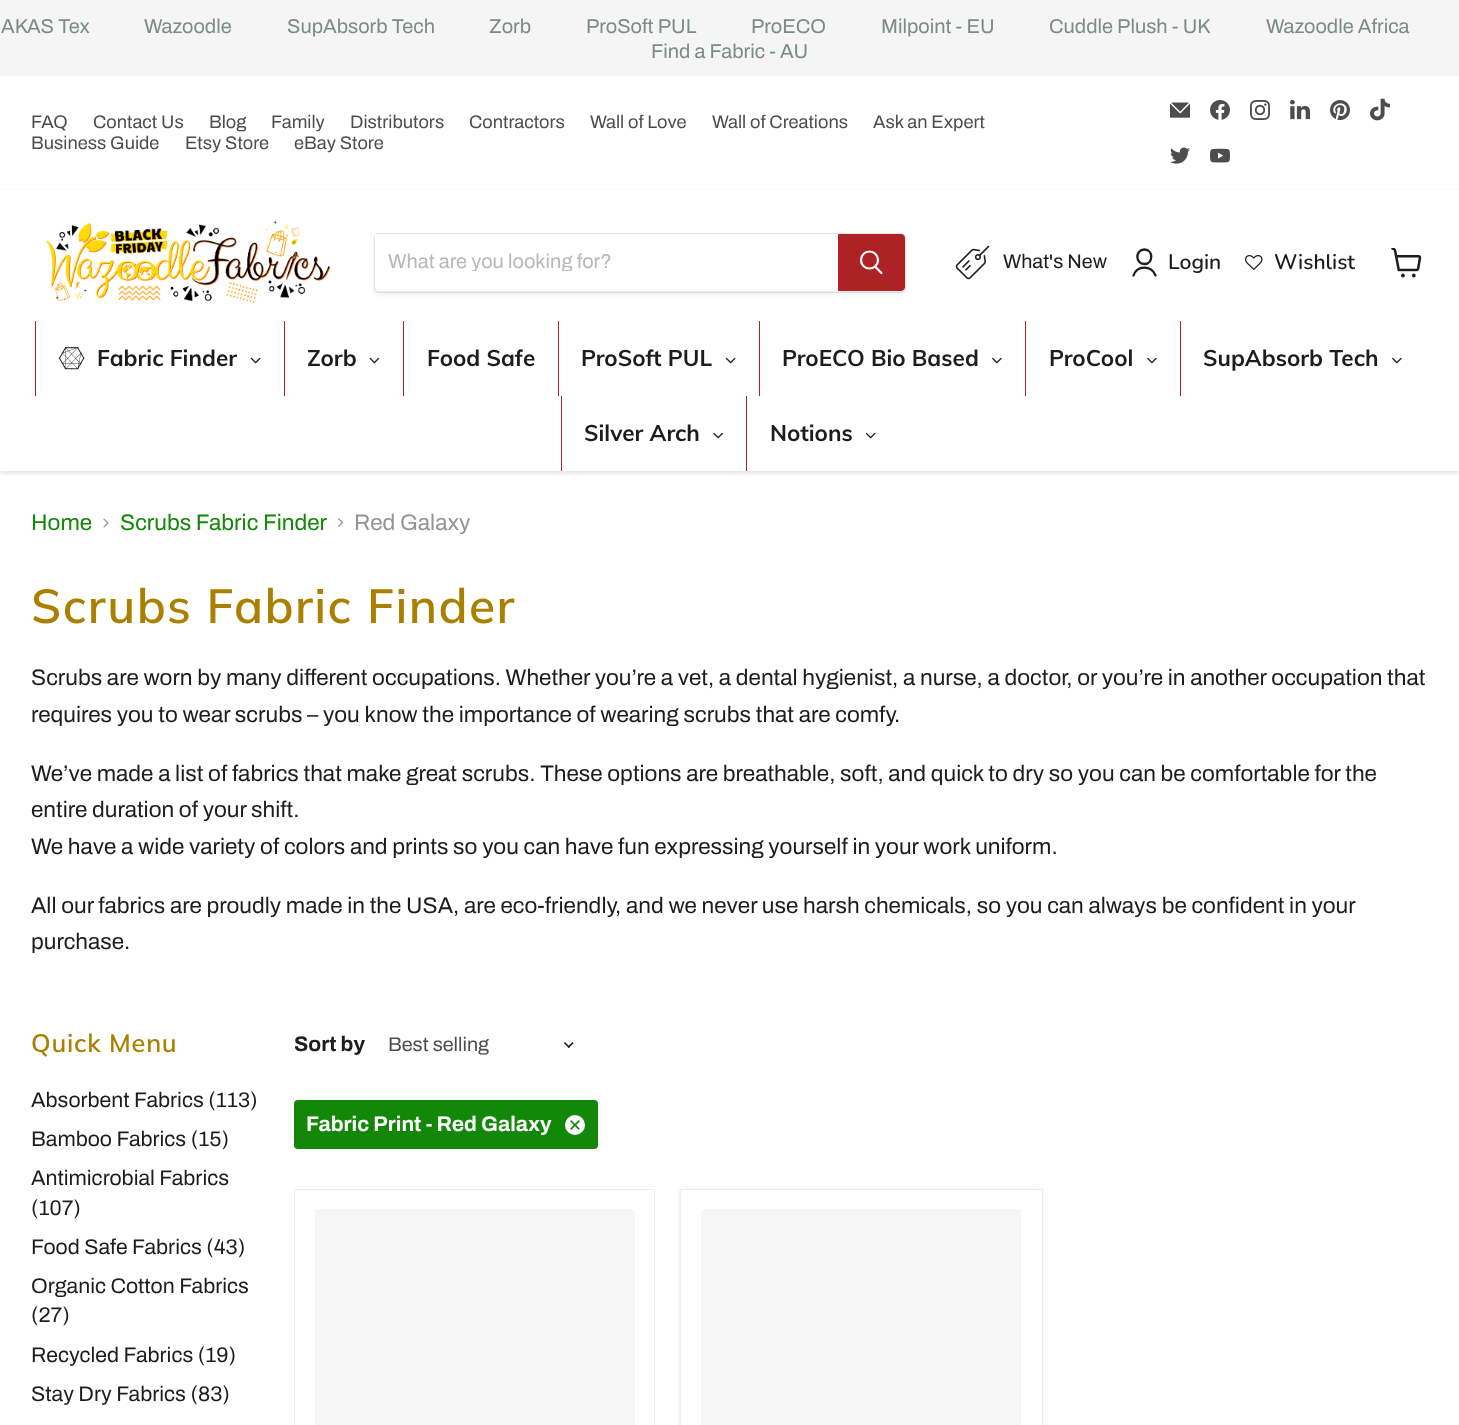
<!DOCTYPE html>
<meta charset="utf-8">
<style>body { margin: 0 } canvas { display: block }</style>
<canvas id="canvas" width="1459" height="1425"></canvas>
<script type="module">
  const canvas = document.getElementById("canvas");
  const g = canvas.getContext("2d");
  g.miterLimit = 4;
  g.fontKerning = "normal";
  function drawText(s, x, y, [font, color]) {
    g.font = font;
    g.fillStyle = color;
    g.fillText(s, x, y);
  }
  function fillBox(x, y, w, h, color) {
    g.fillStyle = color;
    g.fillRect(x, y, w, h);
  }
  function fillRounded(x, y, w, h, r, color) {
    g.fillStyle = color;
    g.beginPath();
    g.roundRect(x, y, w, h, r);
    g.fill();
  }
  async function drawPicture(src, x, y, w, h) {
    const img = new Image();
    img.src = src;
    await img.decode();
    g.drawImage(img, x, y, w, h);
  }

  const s1 = ["600 20px Archivo", "#7D8B86"];
  const s2 = ["600 18.25px Archivo", "#4D4D4D"];
  const s3 = ["600 20px Archivo", "#B8B8B8"];
  const s4 = ["600 19.75px Archivo", "#1D1D1D"];
  const s5 = ["600 21.1px Nunito", "#1D1D1D"];
  const s6 = ["bold 22.5px Muli", "#1D1D1D"];
  const s7 = ["600 22.5px Archivo", "#138808"];
  const s8 = ["600 22.5px Archivo", "#949494"];
  const s9 = ["600 47.75px Muli", "#AB8000"];
  const s10 = ["600 22.5px Archivo", "#1D1D1D"];
  const s11 = ["600 25.25px Muli", "#AB8000"];
  const s12 = ["600 21.25px Archivo", "#1D1D1D"];
  const s13 = ["bold 21.1px Archivo", "#1D1D1D"];
  const s14 = ["600 19.75px Archivo", "#4D4D4D"];
  const s15 = ["bold 21.1px Archivo", "#FFFFFF"];

  fillBox(0, 0, 1459, 1425, "#FFFFFF");
  fillBox(0, 0, 1459, 76, "#F5F5F5");
  drawText("AKAS Tex", 1, 33, s1);
  drawText("Wazoodle", 144, 33, s1);
  drawText("SupAbsorb Tech", 287, 33, s1);
  drawText("Zorb", 489, 33, s1);
  drawText("ProSoft PUL", 586, 33, s1);
  drawText("ProECO", 751, 33, s1);
  drawText("Milpoint - EU", 881, 33, s1);
  drawText("Cuddle Plush - UK", 1049, 33, s1);
  drawText("Wazoodle Africa", 1266, 33, s1);
  drawText("Find a Fabric - AU", 651, 58, s1);
  g.save();
  g.beginPath();
  g.rect(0, 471, 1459, 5);
  g.clip();
  g.fillStyle = "rgba(128, 128, 128, 0.25)";
  g.filter = "blur(2.5px)";
  g.beginPath();
  g.rect(0, 191, 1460, 282);
  g.fill();
  g.filter = "none";
  g.restore();
  fillBox(0, 188, 1459, 1, "#FFFFFF");
  fillBox(0, 189, 1459, 1, "#FBFBFB");
  drawText("FAQ", 31, 128, s2);
  drawText("Contact Us", 93, 128, s2);
  drawText("Blog", 209, 128, s2);
  drawText("Family", 271, 128, s2);
  drawText("Distributors", 350, 128, s2);
  drawText("Contractors", 469, 128, s2);
  drawText("Wall of Love", 590, 128, s2);
  drawText("Wall of Creations", 712, 128, s2);
  drawText("Ask an Expert", 873, 128, s2);
  drawText("Business Guide", 31, 149, s2);
  drawText("Etsy Store", 185, 149, s2);
  drawText("eBay Store", 294, 149, s2);
  await drawPicture("pic1.png", 1170, 102, 20, 16);
  await drawPicture("pic2.png", 1210, 100, 20, 20);
  await drawPicture("pic3.png", 1250, 100, 20, 20);
  await drawPicture("pic4.png", 1290, 100, 20, 20);
  await drawPicture("pic5.png", 1330, 100, 20, 20);
  await drawPicture("pic6.png", 1370, 98, 20, 23);
  await drawPicture("pic7.png", 1170, 147, 20, 17);
  await drawPicture("pic8.png", 1210, 148, 20, 15);
  await drawPicture("pic9.png", 46, 220, 285, 83);
  g.fillStyle = "rgba(128, 128, 128, 0.11)";
  g.filter = "blur(2px)";
  g.beginPath();
  g.roundRect(374, 235, 532, 60, 5);
  g.fill();
  g.filter = "none";
  g.beginPath();
  g.roundRect(374.5, 233.5, 531, 59, 4.5);
  g.strokeStyle = "rgba(128, 128, 128, 0.2)";
  g.stroke();
  g.fillStyle = "#FFFFFF";
  g.beginPath();
  g.roundRect(375, 234, 463, 57, [4, 0, 0, 4]);
  g.fill();
  g.save();
  g.beginPath();
  g.rect(388, 250, 437, 21);
  g.clip();
  drawText("What are you looking for?", 388, 268, s3);
  g.restore();
  g.fillStyle = "#AC2225";
  g.beginPath();
  g.roundRect(838.5, 234.5, 66, 56, [0, 3.5, 3.5, 0]);
  g.fill();
  g.strokeStyle = "#AC2225";
  g.stroke();
  g.beginPath();
  g.moveTo(881.5, 273);
  g.lineTo(875.5, 267);
  g.strokeStyle = "#FFFFFF";
  g.lineWidth = 2.2;
  g.lineCap = "round";
  g.stroke();
  g.beginPath();
  g.arc(869.5, 260, 8.5, 0, Math.PI * 2);
  g.stroke();
  await drawPicture("pic10.png", 955, 245, 35, 35);
  drawText("What's New", 1003, 268, s4);
  g.beginPath();
  g.moveTo(1144.5, 264);
  g.bezierCurveTo(1153.5, 264, 1153.5, 249.5, 1144.5, 249.5);
  g.bezierCurveTo(1135, 249.5, 1135, 264, 1144.5, 264);
  g.closePath();
  g.moveTo(1155.5, 275.5);
  g.bezierCurveTo(1151.5, 265, 1137, 265, 1133.5, 275.5);
  g.strokeStyle = "#1D1D1D";
  g.lineWidth = 2.3;
  g.lineJoin = "round";
  g.stroke();
  drawText("Login", 1168, 269, s5);
  await drawPicture("pic11.png", 1245, 255, 18, 15);
  drawText("Wishlist", 1274, 269, s5);
  await drawPicture("pic12.png", 1391, 248, 31, 30);
  fillBox(35, 321, 1, 75, "#AC2225");
  await drawPicture("pic13.png", 58, 347, 27, 23);
  drawText("Fabric Finder", 97, 366, s6);
  await drawPicture("pic14.png", 250, 357, 11, 7);
  fillBox(284, 321, 1, 75, "#AC2225");
  drawText("Zorb", 307, 366, s6);
  await drawPicture("pic15.png", 369, 357, 11, 7);
  fillBox(403, 321, 1, 75, "#AC2225");
  drawText("Food Safe", 427, 366, s6);
  fillBox(558, 321, 1, 75, "#AC2225");
  drawText("ProSoft PUL", 581, 366, s6);
  await drawPicture("pic14.png", 725, 357, 11, 7);
  fillBox(759, 321, 1, 75, "#AC2225");
  drawText("ProECO Bio Based", 782, 366, s6);
  await drawPicture("pic16.png", 992, 357, 10, 7);
  fillBox(1025, 321, 1, 75, "#AC2225");
  drawText("ProCool", 1049, 366, s6);
  await drawPicture("pic16.png", 1147, 357, 10, 7);
  fillBox(1180, 321, 1, 75, "#AC2225");
  drawText("SupAbsorb Tech", 1203, 366, s6);
  await drawPicture("pic16.png", 1392, 357, 10, 7);
  fillBox(561, 396, 1, 75, "#AC2225");
  drawText("Silver Arch", 584, 441, s6);
  await drawPicture("pic17.png", 713, 432, 10, 7);
  fillBox(746, 396, 1, 75, "#AC2225");
  drawText("Notions", 770, 441, s6);
  await drawPicture("pic14.png", 865, 432, 11, 7);
  drawText("Home", 31, 530, s7);
  await drawPicture("pic18.png", 103, 518, 6, 10);
  drawText("Scrubs Fabric Finder", 120, 530, s7);
  await drawPicture("pic19.png", 338, 518, 6, 10);
  drawText("Red Galaxy", 354, 530, s8);
  g.letterSpacing = "1.4px";
  drawText("Scrubs Fabric Finder", 31, 623, s9);
  g.letterSpacing = "0px";
  drawText("Scrubs are worn by many different occupations. Whether you’re a vet, a dental hygienist, a nurse, a doctor, or you’re in another occupation that", 31, 685, s10);
  drawText("requires you to wear scrubs – you know the importance of wearing scrubs that are comfy.", 31, 722, s10);
  drawText("We’ve made a list of fabrics that make great scrubs. These options are breathable, soft, and quick to dry so you can be comfortable for the", 31, 781, s10);
  drawText("entire duration of your shift.", 31, 817, s10);
  drawText("We have a wide variety of colors and prints so you can have fun expressing yourself in your work uniform.", 31, 854, s10);
  drawText("All our fabrics are proudly made in the USA, are eco-friendly, and we never use harsh chemicals, so you can always be confident in your", 31, 913, s10);
  drawText("purchase.", 31, 949, s10);
  g.letterSpacing = "0.75px";
  drawText("Quick Menu", 31, 1052, s11);
  g.letterSpacing = "0px";
  drawText("Absorbent Fabrics (113)", 31, 1107, s12);
  drawText("Bamboo Fabrics (15)", 31, 1146, s12);
  drawText("Antimicrobial Fabrics", 31, 1185, s12);
  drawText("(107)", 31, 1215, s12);
  drawText("Food Safe Fabrics (43)", 31, 1254, s12);
  drawText("Organic Cotton Fabrics", 31, 1293, s12);
  drawText("(27)", 31, 1322, s12);
  drawText("Recycled Fabrics (19)", 31, 1362, s12);
  drawText("Stay Dry Fabrics (83)", 31, 1401, s12);
  drawText("Sort by", 294, 1051, s13);
  drawText("Best selling", 388, 1051, s14);
  await drawPicture("pic20.png", 564, 1042, 10, 6);
  fillRounded(294, 1100, 304, 49, 4, "#138808");
  drawText("Fabric Print - Red Galaxy", 306, 1131, s15);
  g.beginPath();
  g.arc(575, 1125, 10, 0, Math.PI * 2);
  g.fill();
  await drawPicture("pic21.png", 570, 1120, 10, 10);
  g.strokeStyle = "#EBEBEB";
  g.lineWidth = 1;
  g.lineJoin = "miter";
  g.strokeRect(294.5, 1189.5, 360, 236);
  fillBox(315, 1209, 320, 216, "#F6F6F6");
  g.fillStyle = "rgba(128, 128, 128, 0.11)";
  g.filter = "blur(2.5px)";
  g.beginPath();
  g.rect(680, 1190, 363, 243);
  g.fill();
  g.filter = "none";
  g.fillStyle = "#FFFFFF";
  g.beginPath();
  g.rect(680.5, 1189.5, 362, 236);
  g.fill();
  g.stroke();
  fillBox(701, 1209, 320, 216, "#F6F6F6");
</script>
